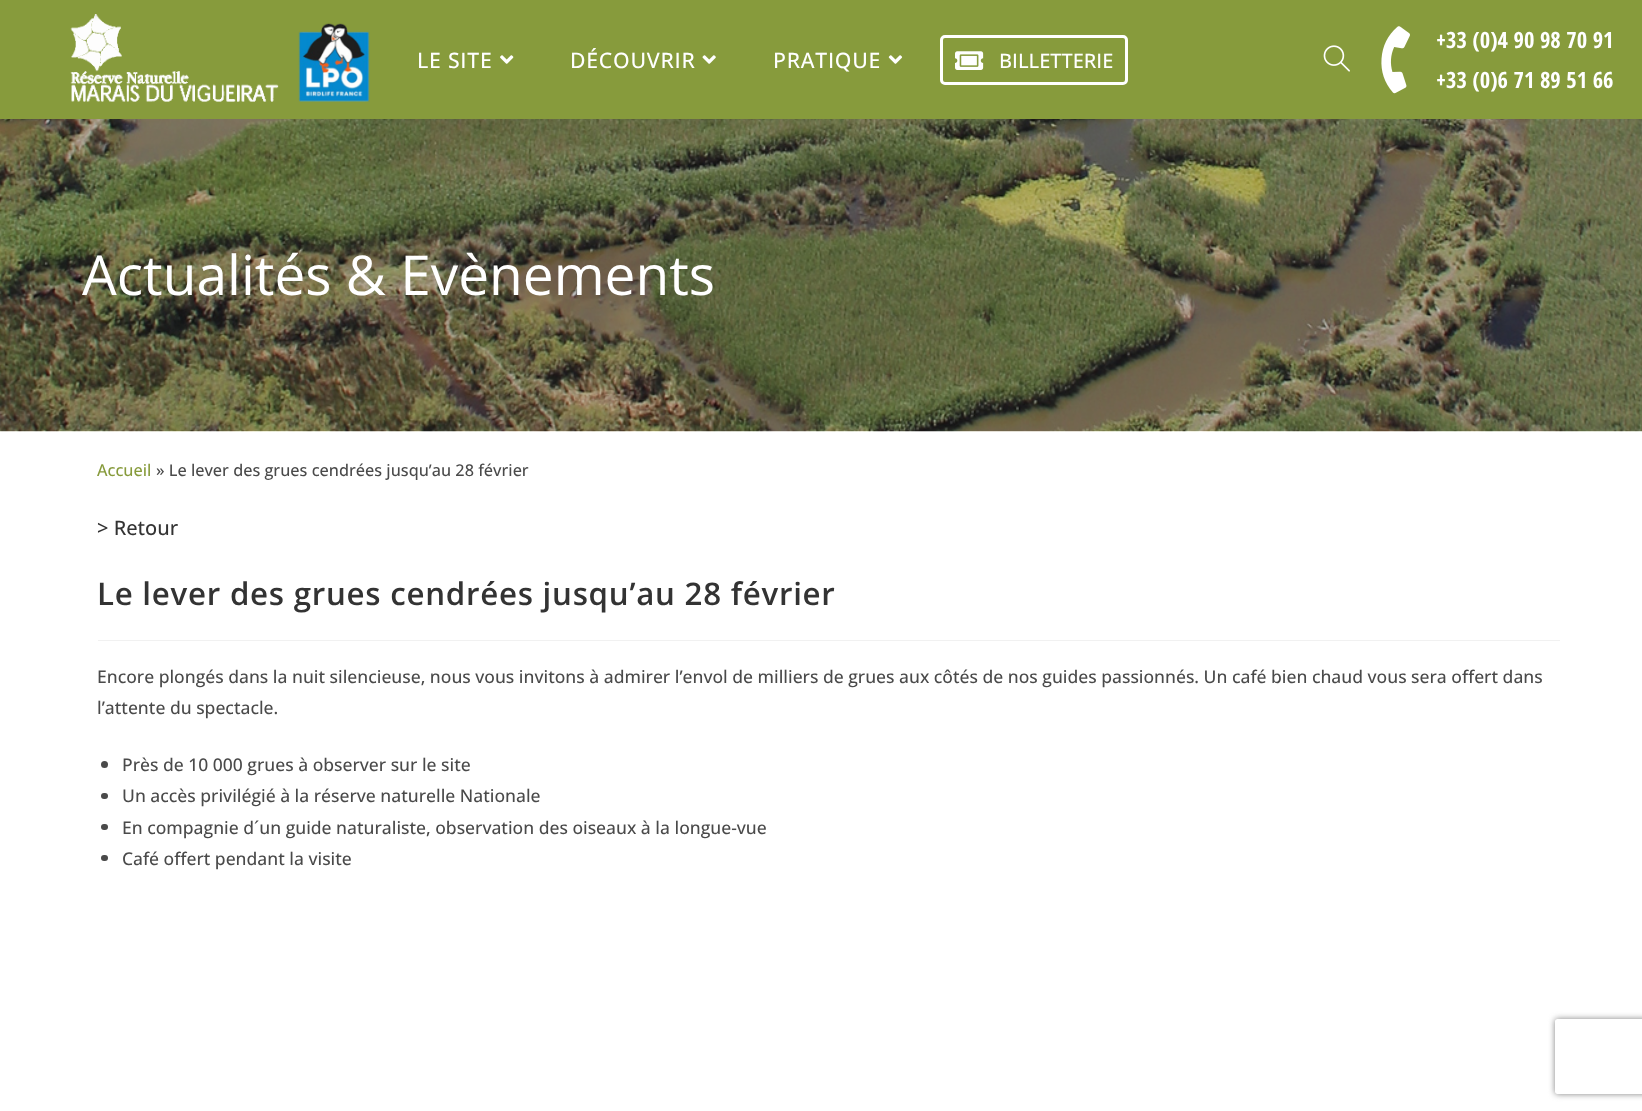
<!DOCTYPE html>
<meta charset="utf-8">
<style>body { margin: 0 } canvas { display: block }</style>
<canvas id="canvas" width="1642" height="1111"></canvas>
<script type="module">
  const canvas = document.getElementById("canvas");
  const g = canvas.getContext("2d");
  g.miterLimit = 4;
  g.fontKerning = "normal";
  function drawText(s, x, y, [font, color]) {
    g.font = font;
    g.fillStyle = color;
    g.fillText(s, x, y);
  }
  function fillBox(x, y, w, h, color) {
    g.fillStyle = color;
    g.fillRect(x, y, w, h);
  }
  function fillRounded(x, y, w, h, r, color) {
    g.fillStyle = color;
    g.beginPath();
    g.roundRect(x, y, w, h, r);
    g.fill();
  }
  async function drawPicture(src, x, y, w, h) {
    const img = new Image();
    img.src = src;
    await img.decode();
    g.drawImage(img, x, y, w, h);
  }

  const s1 = ["500 21.25px Open Sans", "#FFFFFF"];
  const s2 = ["500 20px Open Sans", "#FFFFFF"];
  const s3 = ["bold 22.5px Open Sans Condensed", "#FFFFFF"];
  const s4 = ["55px Open Sans", "#FFFFFF"];
  const s5 = ["500 16.25px Open Sans", "#879B3C"];
  const s6 = ["500 16.25px Open Sans", "#4A4A4A"];
  const s7 = ["500 20px Open Sans", "#333333"];
  const s8 = ["600 31.25px Open Sans", "#333333"];
  const s9 = ["500 17.5px Open Sans", "#4A4A4A"];

  fillBox(0, 0, 1642, 1111, "#FFFFFF");
  fillBox(0, 0, 1642, 119, "#879B3C");
  await drawPicture("pic1.png", 70, 14, 300, 88);
  g.letterSpacing = "0.75px";
  drawText("LE SITE", 417, 68, s1);
  await drawPicture("pic2.png", 500, 55, 14, 9);
  drawText("DÉCOUVRIR", 570, 68, s1);
  await drawPicture("pic3.png", 702, 55, 14, 9);
  drawText("PRATIQUE", 773, 68, s1);
  await drawPicture("pic4.png", 888, 55, 15, 9);
  g.beginPath();
  g.roundRect(941.5, 36.5, 185, 47, 3.5);
  g.strokeStyle = "#FFFFFF";
  g.lineWidth = 3;
  g.stroke();
  await drawPicture("pic5.png", 955, 51, 29, 19);
  g.letterSpacing = "0px";
  drawText("BILLETTERIE", 999, 68, s2);
  await drawPicture("pic6.png", 1323, 45, 27, 27);
  await drawPicture("pic7.png", 1381, 26, 29, 68);
  drawText("+33 (0)4 90 98 70 91", 1436, 48, s3);
  drawText("+33 (0)6 71 89 51 66", 1436, 88, s3);
  await drawPicture("pic8.png", 0, 119, 1642, 313);
  drawText("Actualités & Evènements", 82, 295, s4);
  drawText("Accueil", 97, 476, s5);
  drawText("» Le lever des grues cendrées jusqu’au 28 février", 156, 476, s6);
  drawText("> Retour", 97, 535, s7);
  fillBox(98, 640, 1462, 1, "#F1F1F1");
  g.letterSpacing = "0.75px";
  drawText("Le lever des grues cendrées jusqu’au 28 février", 97, 605, s8);
  g.letterSpacing = "0px";
  drawText("Encore plongés dans la nuit silencieuse, nous vous invitons à admirer l’envol de milliers de grues aux côtés de nos guides passionnés. Un café bien chaud vous sera offert dans", 97, 683, s9);
  drawText("l’attente du spectacle.", 97, 714, s9);
  g.beginPath();
  g.arc(104.5, 764.5, 3.5, 0, Math.PI * 2);
  g.fill();
  drawText("Près de 10 000 grues à observer sur le site", 122, 771, s9);
  fillRounded(101, 793, 7, 6, 3, "#4A4A4A");
  drawText("Un accès privilégié à la réserve naturelle Nationale", 122, 802, s9);
  fillRounded(101, 824, 7, 6, 3, "#4A4A4A");
  drawText("En compagnie d´un guide naturaliste, observation des oiseaux à la longue-vue", 122, 834, s9);
  fillRounded(101, 855, 7, 6, 3, "#4A4A4A");
  drawText("Café offert pendant la visite", 122, 865, s9);
  g.save();
  g.beginPath();
  g.moveTo(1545, 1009);
  g.lineTo(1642, 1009);
  g.lineTo(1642, 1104);
  g.lineTo(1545, 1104);
  g.closePath();
  g.moveTo(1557.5, 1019);
  g.lineTo(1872.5, 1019);
  g.bezierCurveTo(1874, 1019, 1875, 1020, 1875, 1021.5);
  g.lineTo(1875, 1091.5);
  g.bezierCurveTo(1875, 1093, 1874, 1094, 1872.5, 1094);
  g.lineTo(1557.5, 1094);
  g.bezierCurveTo(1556, 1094, 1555, 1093, 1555, 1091.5);
  g.lineTo(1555, 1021.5);
  g.bezierCurveTo(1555, 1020, 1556, 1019, 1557.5, 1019);
  g.closePath();
  g.clip("evenodd");
  g.fillStyle = "#808080";
  g.filter = "blur(3px)";
  g.beginPath();
  g.roundRect(1555, 1019, 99, 75, 2.5);
  g.fill();
  g.filter = "none";
  g.restore();
</script>
